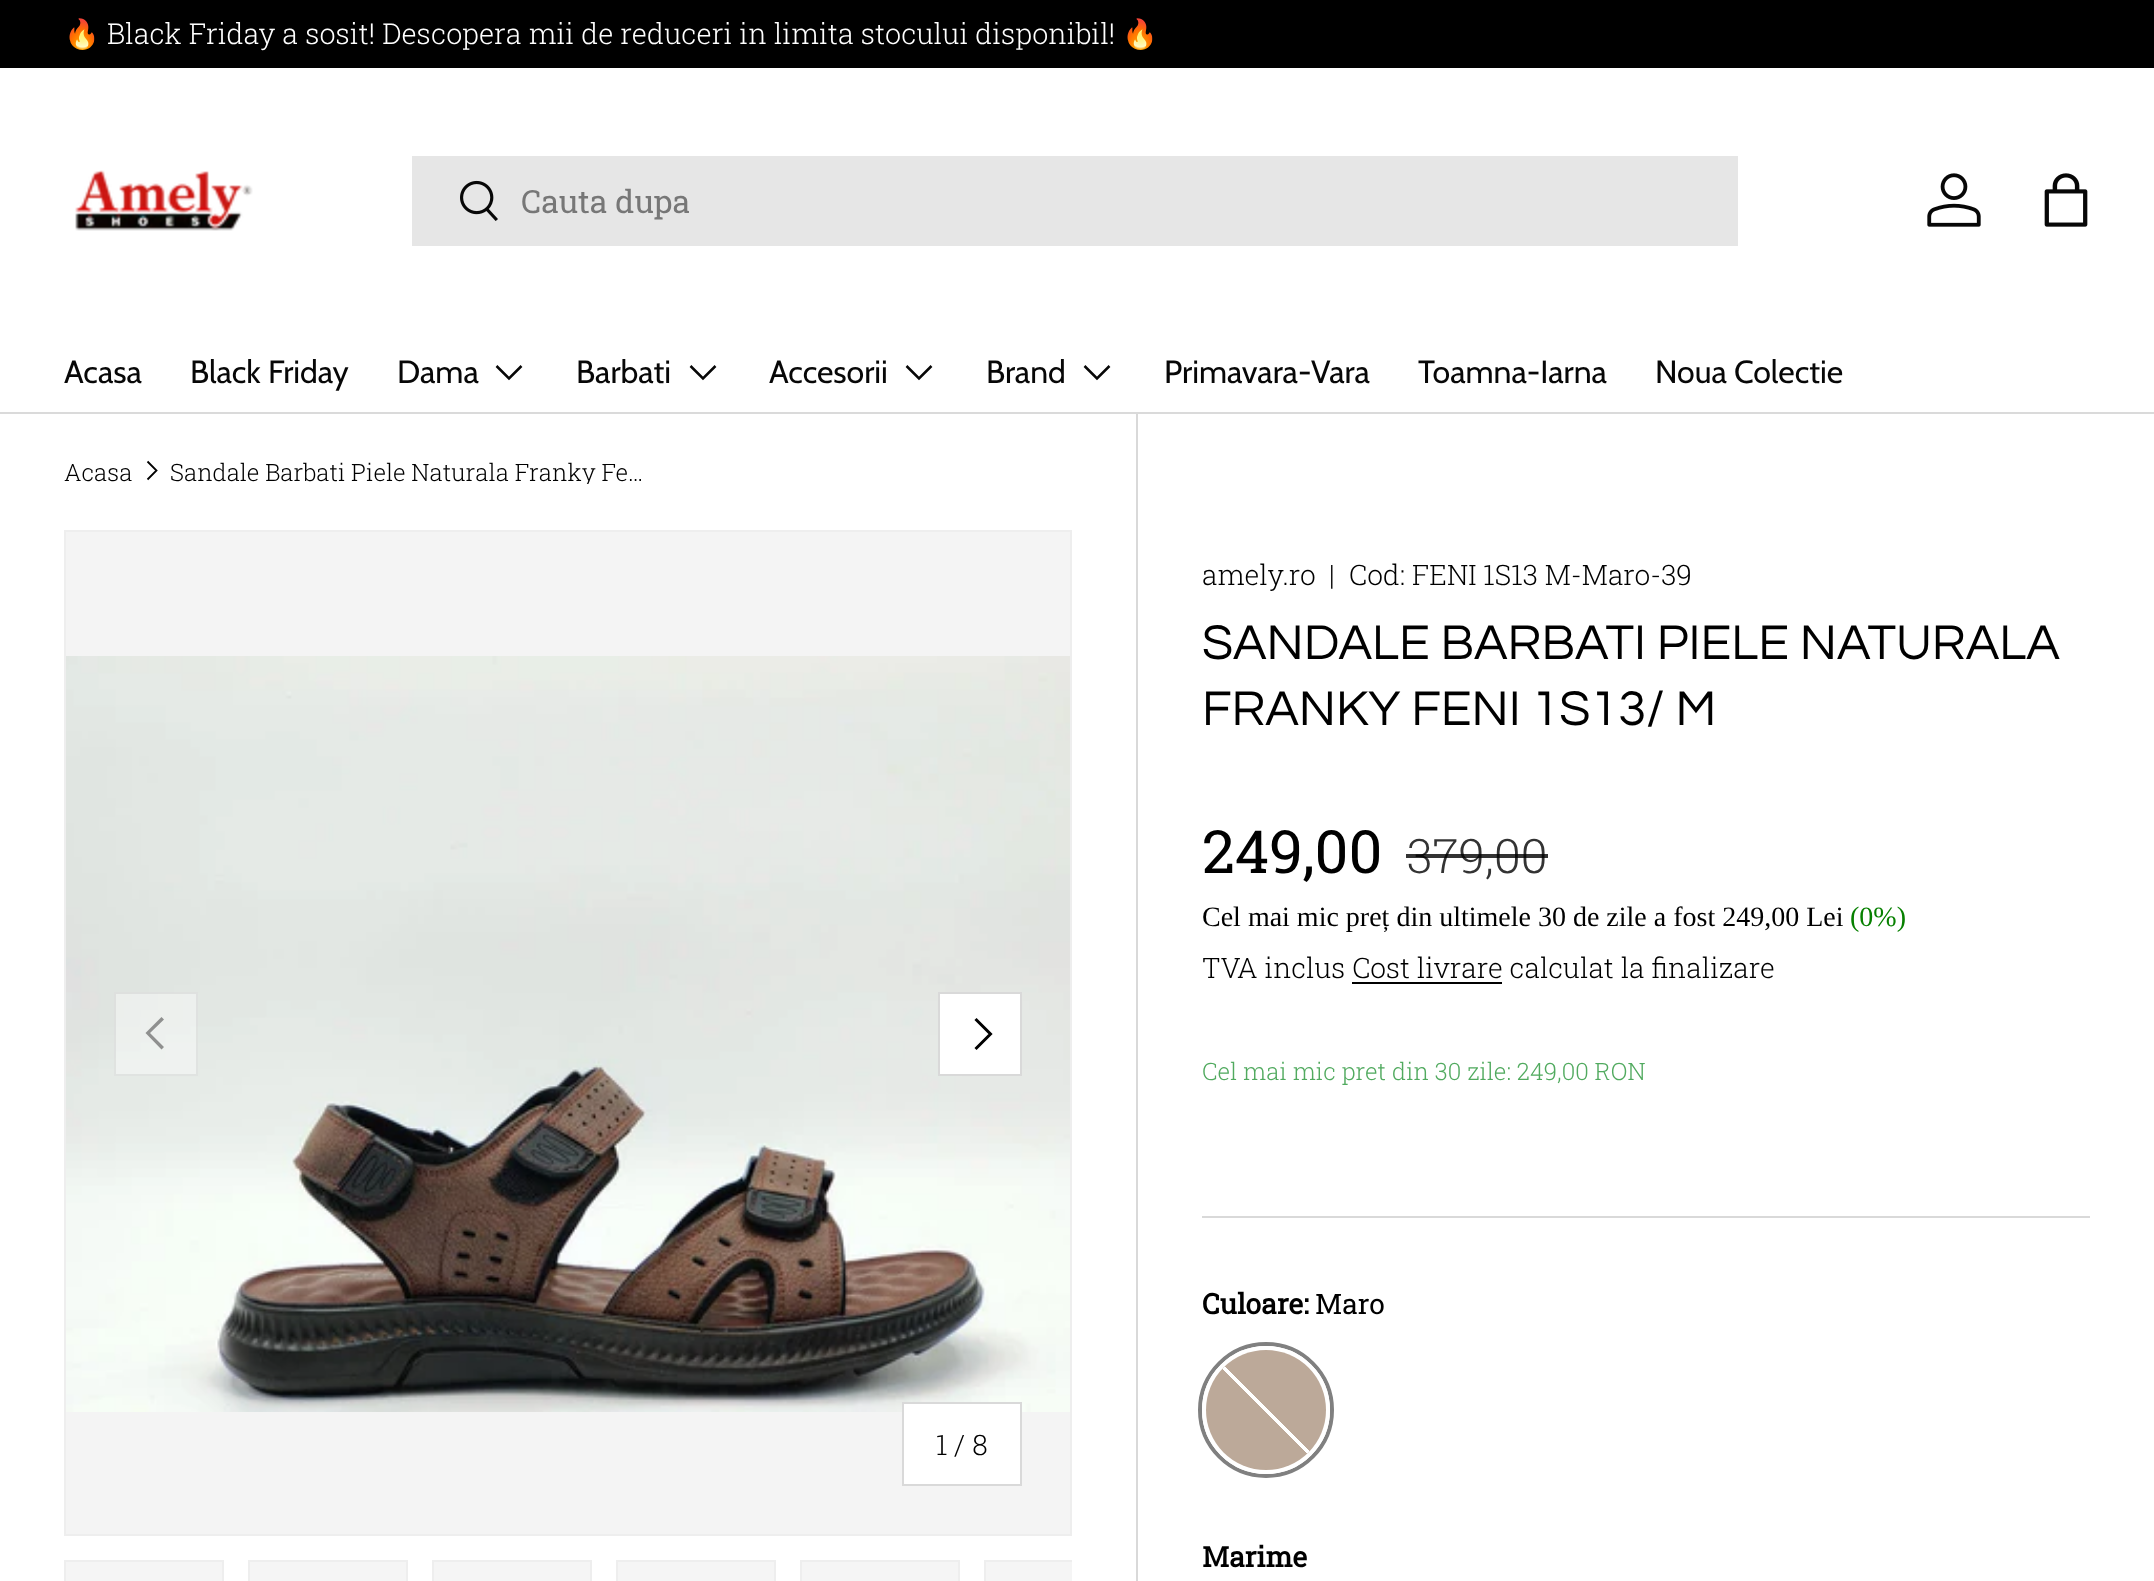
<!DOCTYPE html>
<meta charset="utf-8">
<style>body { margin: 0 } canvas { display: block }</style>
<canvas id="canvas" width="2154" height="1581"></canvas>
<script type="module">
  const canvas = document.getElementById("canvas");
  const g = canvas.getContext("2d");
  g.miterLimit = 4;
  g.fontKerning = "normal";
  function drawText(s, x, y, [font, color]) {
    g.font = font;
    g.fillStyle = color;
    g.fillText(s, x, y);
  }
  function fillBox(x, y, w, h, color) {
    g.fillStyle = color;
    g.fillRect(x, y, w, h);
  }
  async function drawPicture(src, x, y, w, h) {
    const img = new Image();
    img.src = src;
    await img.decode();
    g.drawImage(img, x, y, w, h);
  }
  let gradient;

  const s1 = ["28.8px Noto Color Emoji", "#FFFFFF"];
  const s2 = ["300 28.8px Roboto Slab", "#FFFFFF"];
  const s3 = ["32px Roboto Slab", "#777777"];
  const s4 = ["32px Cabin", "#070707"];
  const s5 = ["300 24px Roboto Slab", "#000000"];
  const s6 = ["300 28.2px Roboto Slab", "#000000"];
  const s7 = ["50.6px Questrial", "#000000"];
  const s8 = ["59.5px Roboto Slab", "#000000"];
  const s9 = ["300 47.5px Roboto Slab", "#333333"];
  const s10 = ["28px Liberation Serif", "#000000"];
  const s11 = ["28px Liberation Serif", "#078000"];
  const s12 = ["300 24px Roboto Slab", "#51AA5F"];
  const s13 = ["bold 28.2px Roboto Slab", "#000000"];
  const s14 = ["28.2px Roboto Slab", "#000000"];

  fillBox(0, 0, 2154, 1581, "#FFFFFF");
  fillBox(0, 0, 2154, 68, "#000000");
  drawText("🔥", 64, 44, s1);
  drawText("Black Friday a sosit! Descopera mii de reduceri in limita stocului disponibil!", 107, 44, s2);
  drawText("🔥", 1122, 44, s1);
  fillBox(0, 412, 2154, 2, "#DADADA");
  await drawPicture("pic1.png", 75, 170, 178, 61);
  fillBox(412, 156, 1326, 90, "#E6E6E6");
  await drawPicture("pic2.png", 460, 180, 38, 41);
  drawText("Cauta dupa", 521, 213, s3);
  await drawPicture("pic3.png", 1927, 173, 54, 54);
  await drawPicture("pic4.png", 2044, 173, 44, 54);
  drawText("Acasa", 64, 383, s4);
  drawText("Black Friday", 190, 383, s4);
  drawText("Dama", 397, 383, s4);
  g.beginPath();
  g.moveTo(521.5, 366);
  g.lineTo(509, 378.5);
  g.lineTo(496.5, 366);
  g.strokeStyle = "#070707";
  g.lineWidth = 2.5;
  g.stroke();
  drawText("Barbati", 576, 383, s4);
  g.beginPath();
  g.moveTo(715.5, 366);
  g.lineTo(703, 378.5);
  g.lineTo(690.5, 366);
  g.stroke();
  drawText("Accesorii", 769, 383, s4);
  g.beginPath();
  g.moveTo(931.5, 366);
  g.lineTo(919, 378.5);
  g.lineTo(906.5, 366);
  g.stroke();
  drawText("Brand", 986, 383, s4);
  g.beginPath();
  g.moveTo(1109.5, 366);
  g.lineTo(1097, 378.5);
  g.lineTo(1084.5, 366);
  g.stroke();
  drawText("Primavara-Vara", 1164, 383, s4);
  drawText("Toamna-Iarna", 1418, 383, s4);
  drawText("Noua Colectie", 1655, 383, s4);
  drawText("Acasa", 64, 481, s5);
  g.beginPath();
  g.moveTo(147.5, 461.5);
  g.lineTo(156.5, 470.5);
  g.lineTo(147.5, 479.5);
  g.strokeStyle = "#000000";
  g.lineWidth = 1.8;
  g.stroke();
  g.save();
  g.beginPath();
  g.rect(170, 460, 480, 24);
  g.clip();
  drawText("Sandale Barbati Piele Naturala Franky Fe…", 170, 481, s5);
  g.restore();
  g.fillStyle = "#F4F4F4";
  g.beginPath();
  g.rect(65, 531, 1006, 1004);
  g.fill();
  g.strokeStyle = "#EEEEEE";
  g.lineWidth = 2;
  g.stroke();
  await drawPicture("pic5.png", 66, 656, 1004, 756);
  fillBox(114, 992, 84, 84, "rgba(255, 255, 255, 0.4)");
  g.strokeStyle = "rgba(0, 0, 0, 0.06)";
  g.strokeRect(115, 993, 82, 82);
  g.fillStyle = "#8F908F";
  g.beginPath();
  g.moveTo(145.5, 1033);
  g.lineTo(161.5, 1017);
  g.lineTo(164, 1019.5);
  g.lineTo(150, 1033);
  g.lineTo(164, 1047);
  g.lineTo(161.5, 1049.5);
  g.closePath();
  g.fill();
  g.fillStyle = "#FFFFFF";
  g.beginPath();
  g.rect(939, 993, 82, 82);
  g.fill();
  g.strokeStyle = "#D9D9D9";
  g.stroke();
  g.beginPath();
  g.moveTo(975.5, 1019);
  g.lineTo(990.5, 1034);
  g.lineTo(975.5, 1049);
  g.strokeStyle = "#000000";
  g.lineWidth = 3;
  g.stroke();
  g.beginPath();
  g.rect(903, 1403, 118, 82);
  g.fill();
  g.strokeStyle = "#D9D9D9";
  g.lineWidth = 2;
  g.stroke();
  drawText("1 / 8", 936, 1455, s6);
  g.fillStyle = "#F5F5F5";
  g.beginPath();
  g.rect(65, 1561, 158, 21);
  g.fill();
  g.strokeStyle = "#EEEEEE";
  g.stroke();
  g.beginPath();
  g.rect(249, 1561, 158, 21);
  g.fill();
  g.stroke();
  g.beginPath();
  g.rect(433, 1561, 158, 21);
  g.fill();
  g.stroke();
  g.beginPath();
  g.rect(617, 1561, 158, 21);
  g.fill();
  g.stroke();
  g.beginPath();
  g.rect(801, 1561, 158, 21);
  g.fill();
  g.stroke();
  fillBox(986, 1562, 86, 19, "#F5F5F5");
  g.save();
  g.beginPath();
  g.rect(64, 1560, 1008, 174);
  g.clip();
  g.strokeRect(985, 1561, 158, 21);
  g.restore();
  fillBox(1136, 414, 2, 1167, "#D9D9D9");
  drawText("amely.ro", 1202, 585, s6);
  drawText("|", 1329, 585, s6);
  drawText("Cod: FENI 1S13 M-Maro-39", 1349, 585, s6);
  drawText("SANDALE BARBATI PIELE NATURALA", 1202, 659, s7);
  drawText("FRANKY FENI 1S13/ M", 1202, 725, s7);
  drawText("249,00", 1202, 873, s8);
  drawText("379,00", 1407, 873, s9);
  fillBox(1406, 854, 142, 4, "rgba(0, 0, 0, 0.8)");
  drawText("Cel mai mic preț din ultimele 30 de zile a fost 249,00 Lei", 1202, 926, s10);
  drawText("(0%)", 1850, 926, s11);
  drawText("TVA inclus Cost livrare calculat la finalizare", 1202, 978, s6);
  fillBox(1352, 982, 150, 2, "#000000");
  drawText("Cel mai mic pret din 30 zile: 249,00 RON", 1202, 1080, s12);
  fillBox(1202, 1216, 888, 2, "#D9D9D9");
  drawText("Culoare:", 1202, 1314, s13);
  drawText("Maro", 1315, 1314, s14);
  g.beginPath();
  g.arc(1266, 1410, 66, 0, Math.PI * 2);
  g.strokeStyle = "#808080";
  g.lineWidth = 4;
  g.stroke();
  g.beginPath();
  g.arc(1266, 1410, 62, 0, Math.PI * 2);
  g.strokeStyle = "#FFFFFF";
  g.stroke();
  g.fillStyle = "#BCA999";
  g.beginPath();
  g.arc(1266, 1410, 60, 0, Math.PI * 2);
  g.fill();
  gradient = g.createLinearGradient(1326, 1350, 1206, 1470);
  gradient.addColorStop(0.49, "rgba(255, 255, 255, 0)");
  gradient.addColorStop(0.49, "#FFFFFF");
  gradient.addColorStop(0.51, "#FFFFFF");
  gradient.addColorStop(0.51, "rgba(255, 255, 255, 0)");
  g.fillStyle = gradient;
  g.beginPath();
  g.arc(1266, 1410, 60, 0, Math.PI * 2);
  g.fill();
  drawText("Marime", 1202, 1567, s13);
</script>
